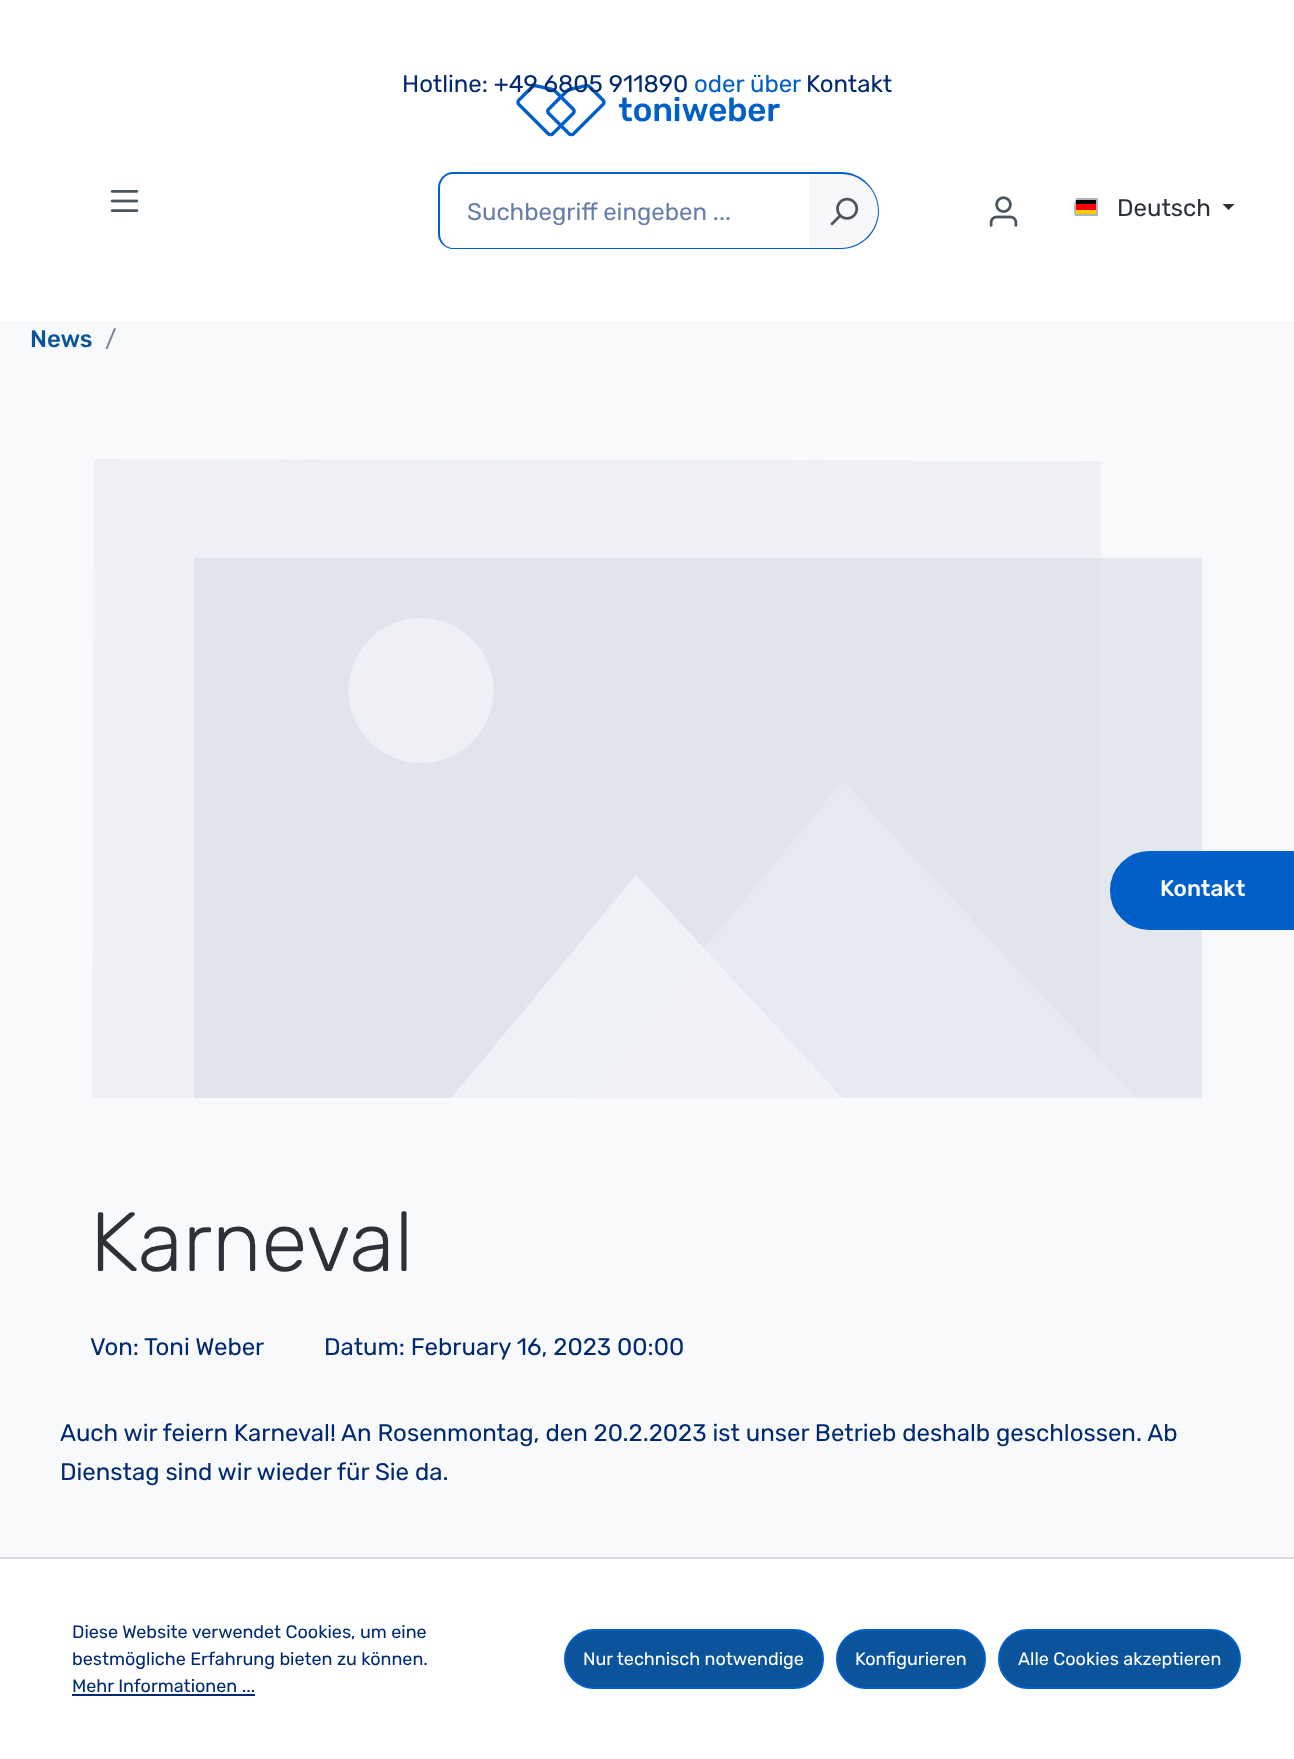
<!DOCTYPE html>
<meta charset="utf-8">
<style>body { margin: 0 } canvas { display: block }</style>
<canvas id="canvas" width="1294" height="1759"></canvas>
<script type="module">
  const canvas = document.getElementById("canvas");
  const g = canvas.getContext("2d");
  g.miterLimit = 4;
  g.fontKerning = "normal";
  function drawText(s, x, y, [font, color]) {
    g.font = font;
    g.fillStyle = color;
    g.fillText(s, x, y);
  }
  function fillBox(x, y, w, h, color) {
    g.fillStyle = color;
    g.fillRect(x, y, w, h);
  }
  async function drawPicture(src, x, y, w, h) {
    const img = new Image();
    img.src = src;
    await img.decode();
    g.drawImage(img, x, y, w, h);
  }

  const s1 = ["24px Rubik", "#002972"];
  const s2 = ["24px Rubik", "#005FC9"];
  const s3 = ["500 22.5px Rubik", "#FFFFFF"];
  const s4 = ["24px Rubik", "#667FAA"];
  const s5 = ["24px Rubik", "#2B3136"];
  const s6 = ["500 24px Rubik", "#0B539B"];
  const s7 = ["24px Rubik", "#798490"];
  const s8 = ["300 84px Rubik", "#2B3136"];
  const s9 = ["18px Rubik", "#002972"];
  const s10 = ["18px Rubik", "#FFFFFF"];

  fillBox(0, 0, 1294, 1759, "#F7F9FB");
  fillBox(0, 0, 1294, 321, "#FFFFFF");
  await drawPicture("pic1.png", 516, 84, 264, 53);
  drawText("Hotline: +49 6805 911890", 402, 92, s1);
  drawText("oder über", 694, 92, s2);
  drawText("Kontakt", 806, 92, s1);
  g.save();
  g.beginPath();
  g.rect(90, 459, 1113, 639);
  g.clip();
  g.fillStyle = "#EEF0F5";
  g.beginPath();
  g.moveTo(92, 1131);
  g.lineTo(94, 459);
  g.lineTo(1101, 461);
  g.lineTo(1100, 1133);
  g.closePath();
  g.fill();
  g.restore();
  fillBox(194, 558, 1008, 540, "rgba(218, 221, 229, 0.65)");
  g.save();
  g.beginPath();
  g.rect(90, 459, 1113, 639);
  g.clip();
  g.fillStyle = "rgba(233, 235, 242, 0.65)";
  g.beginPath();
  g.moveTo(470, 1230);
  g.lineTo(1202, 1230);
  g.lineTo(1202, 1168);
  g.lineTo(843, 781);
  g.closePath();
  g.fill("evenodd");
  g.restore();
  g.fillStyle = "#005FC9";
  g.beginPath();
  g.moveTo(1149.5, 852);
  g.lineTo(1294, 852);
  g.lineTo(1294, 929);
  g.lineTo(1149.5, 929);
  g.bezierCurveTo(1128, 929, 1111, 912, 1111, 890.5);
  g.bezierCurveTo(1111, 869, 1128, 852, 1149.5, 852);
  g.closePath();
  g.fill();
  g.strokeStyle = "#005FC9";
  g.lineWidth = 2;
  g.stroke();
  drawText("Kontakt", 1160, 896, s3);
  await drawPicture("pic2.png", 110, 190, 29, 22);
  g.fillStyle = "#005FC9";
  g.beginPath();
  g.moveTo(453, 172);
  g.lineTo(810, 172);
  g.lineTo(810, 249);
  g.lineTo(453, 249);
  g.bezierCurveTo(445, 249, 438, 242, 438, 234);
  g.lineTo(438, 188);
  g.bezierCurveTo(438, 179, 445, 172, 453, 172);
  g.closePath();
  g.moveTo(453, 174);
  g.lineTo(810, 174);
  g.lineTo(810, 248);
  g.lineTo(453, 248);
  g.bezierCurveTo(446, 248, 440, 241, 440, 234);
  g.lineTo(440, 188);
  g.bezierCurveTo(440, 180, 446, 174, 453, 174);
  g.closePath();
  g.fill("evenodd");
  g.save();
  g.beginPath();
  g.rect(467, 197, 328, 28);
  g.clip();
  drawText("Suchbegriff eingeben ...", 467, 220, s4);
  g.restore();
  g.fillStyle = "#F8F8FA";
  g.beginPath();
  g.roundRect(809, 173, 70, 76, [0, 38, 38, 0]);
  g.fill();
  g.fillStyle = "#005FC9";
  g.beginPath();
  g.moveTo(808, 172);
  g.lineTo(841, 172);
  g.bezierCurveTo(862, 172, 879, 190, 879, 211);
  g.bezierCurveTo(879, 232, 862, 249, 841, 249);
  g.lineTo(808, 249);
  g.closePath();
  g.moveTo(808, 174);
  g.lineTo(841, 174);
  g.bezierCurveTo(861, 174, 878, 190, 878, 211);
  g.bezierCurveTo(878, 231, 861, 248, 841, 248);
  g.lineTo(808, 248);
  g.closePath();
  g.fill("evenodd");
  await drawPicture("pic3.png", 830, 197, 29, 29);
  await drawPicture("pic4.png", 989, 196, 29, 31);
  fillBox(1076, 200, 21, 4, "#000000");
  fillBox(1076, 204, 21, 6, "#FF0000");
  fillBox(1076, 210, 21, 4, "#FFCC00");
  g.fillStyle = "#ADB5BD";
  g.beginPath();
  g.moveTo(1075, 216);
  g.bezierCurveTo(1073.5, 210, 1073.5, 203.5, 1076.5, 198);
  g.lineTo(1098, 198);
  g.lineTo(1098, 216);
  g.closePath();
  g.moveTo(1076, 200);
  g.lineTo(1076, 214);
  g.lineTo(1096, 214);
  g.lineTo(1096, 200);
  g.closePath();
  g.fill("evenodd");
  drawText("Deutsch", 1117, 216, s5);
  g.beginPath();
  g.moveTo(1222.5, 204);
  g.lineTo(1234.5, 204);
  g.lineTo(1228.5, 210);
  g.closePath();
  g.fill();
  drawText("News", 30, 347, s6);
  drawText("/", 105, 347, s7);
  g.fillStyle = "#EEF0F6";
  g.beginPath();
  g.arc(421, 690.5, 72.5, 0, Math.PI * 2);
  g.fill();
  g.save();
  g.beginPath();
  g.rect(90, 459, 1113, 639);
  g.clip();
  g.fillStyle = "rgba(245, 247, 252, 0.65)";
  g.beginPath();
  g.moveTo(636, 875);
  g.lineTo(342, 1230);
  g.lineTo(965, 1230);
  g.closePath();
  g.fill("evenodd");
  g.restore();
  drawText("Karneval", 90, 1271, s8);
  drawText("Von:", 90, 1355, s1);
  drawText("Toni Weber", 144, 1355, s1);
  drawText("Datum: February 16, 2023 00:00", 324, 1355, s1);
  drawText("Auch wir feiern Karneval! An Rosenmontag, den 20.2.2023 ist unser Betrieb deshalb geschlossen. Ab", 60, 1441, s1);
  drawText("Dienstag sind wir wieder für Sie da.", 60, 1480, s1);
  fillBox(0, 1559, 1294, 200, "#FFFFFF");
  fillBox(0, 1557, 1294, 2, "#DADAE5");
  drawText("Diese Website verwendet Cookies, um eine", 72, 1638, s9);
  drawText("bestmögliche Erfahrung bieten zu können.", 72, 1665, s9);
  drawText("Mehr Informationen ...", 72, 1692, s9);
  fillBox(72, 1694, 183, 2, "#002972");
  g.fillStyle = "#0B539B";
  g.beginPath();
  g.roundRect(565, 1630, 258, 58, 29);
  g.fill();
  g.stroke();
  drawText("Nur technisch notwendige", 583, 1665, s10);
  g.fillStyle = "#0B539B";
  g.beginPath();
  g.roundRect(837, 1630, 148, 58, 29);
  g.fill();
  g.stroke();
  drawText("Konfigurieren", 855, 1665, s10);
  g.fillStyle = "#0B539B";
  g.beginPath();
  g.roundRect(999, 1630, 241, 58, 29);
  g.fill();
  g.stroke();
  drawText("Alle Cookies akzeptieren", 1018, 1665, s10);
</script>
